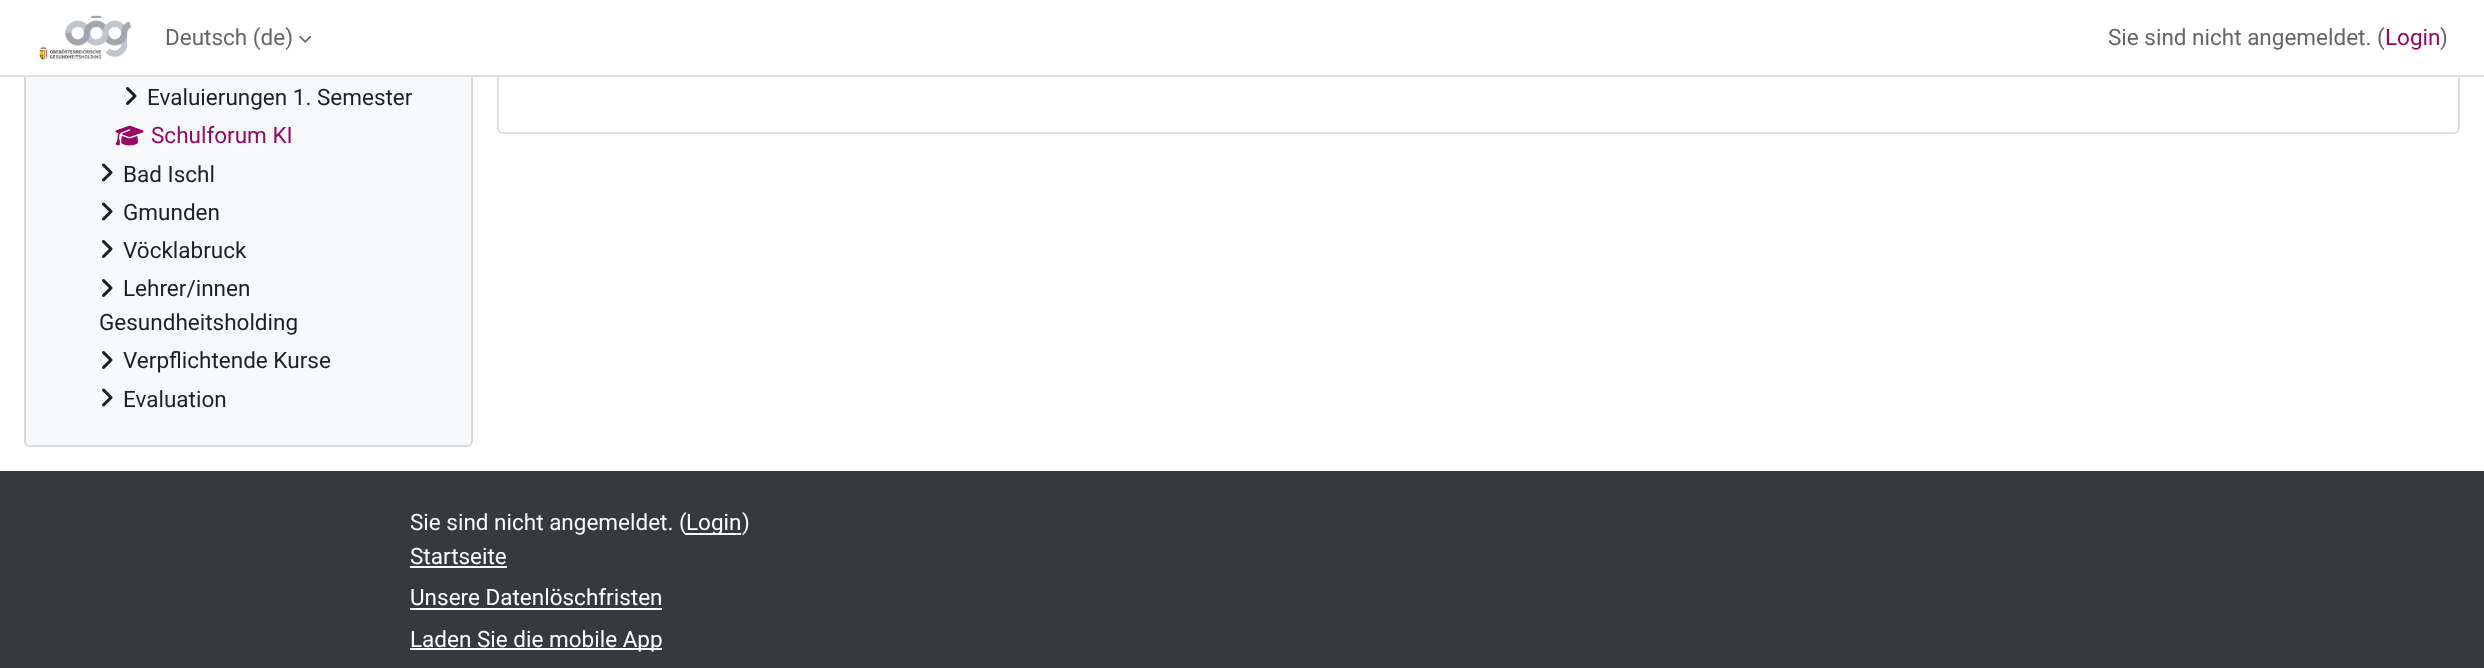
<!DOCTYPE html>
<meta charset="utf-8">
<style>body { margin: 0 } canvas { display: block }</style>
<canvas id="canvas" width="2484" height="668"></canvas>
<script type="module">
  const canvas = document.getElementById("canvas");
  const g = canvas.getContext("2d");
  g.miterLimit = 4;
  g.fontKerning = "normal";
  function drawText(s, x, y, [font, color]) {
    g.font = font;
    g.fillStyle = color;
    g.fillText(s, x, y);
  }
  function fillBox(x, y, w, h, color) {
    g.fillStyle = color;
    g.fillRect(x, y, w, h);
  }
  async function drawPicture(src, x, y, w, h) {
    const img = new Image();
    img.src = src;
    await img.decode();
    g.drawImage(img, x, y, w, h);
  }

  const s1 = ["22.5px Roboto", "#666666"];
  const s2 = ["22.5px Roboto", "#970766"];
  const s3 = ["22.5px Roboto", "#1D2125"];
  const s4 = ["22.5px Roboto", "#F8F9FA"];
  const s5 = ["22.5px Roboto", "#FFFFFF"];

  fillBox(0, 0, 2484, 668, "#FFFFFF");
  g.beginPath();
  g.roundRect(498, -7, 1961, 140, 5);
  g.strokeStyle = "#DFDFDF";
  g.lineWidth = 2;
  g.stroke();
  g.fillStyle = "#F8F9FA";
  g.beginPath();
  g.roundRect(25, -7, 447, 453, 5);
  g.fill();
  g.strokeStyle = "#D9DADB";
  g.stroke();
  fillBox(24, 0, 2436, 75, "#FFFFFF");
  fillBox(0, 75, 2484, 2, "#DEE2E6");
  await drawPicture("pic1.png", 39, 15, 93, 45);
  drawText("Deutsch (de)", 165, 45, s1);
  await drawPicture("pic2.png", 299, 36, 13, 7);
  drawText("Sie sind nicht angemeldet. (", 2108, 45, s1);
  drawText("Login", 2385, 45, s2);
  drawText(")", 2440, 45, s1);
  await drawPicture("pic3.png", 126, 87, 11, 18);
  drawText("Evaluierungen 1. Semester", 147, 105, s3);
  await drawPicture("pic4.png", 115, 125, 29, 21);
  drawText("Schulforum KI", 151, 143, s2);
  await drawPicture("pic5.png", 102, 163, 11, 19);
  drawText("Bad Ischl", 123, 182, s3);
  await drawPicture("pic5.png", 102, 202, 11, 19);
  drawText("Gmunden", 123, 220, s3);
  await drawPicture("pic3.png", 102, 240, 11, 18);
  drawText("Vöcklabruck", 123, 258, s3);
  await drawPicture("pic3.png", 102, 279, 11, 18);
  drawText("Lehrer/innen", 123, 296, s3);
  drawText("Gesundheitsholding", 99, 330, s3);
  await drawPicture("pic3.png", 102, 351, 11, 18);
  drawText("Verpflichtende Kurse", 123, 368, s3);
  await drawPicture("pic5.png", 102, 388, 11, 19);
  drawText("Evaluation", 123, 407, s3);
  fillBox(0, 471, 2484, 197, "#343A40");
  drawText("Sie sind nicht angemeldet. (", 410, 530, s4);
  fillBox(686, 533, 55, 2, "#FFFFFF");
  drawText("Login", 686, 530, s5);
  drawText(")", 742, 530, s4);
  drawText("Startseite", 410, 564, s5);
  fillBox(410, 566, 97, 2, "#FFFFFF");
  drawText("Unsere Datenlöschfristen", 410, 605, s5);
  fillBox(410, 608, 252, 2, "#FFFFFF");
  fillBox(410, 648, 252, 2, "#FFFFFF");
  drawText("Laden Sie die mobile App", 410, 647, s5);
</script>
